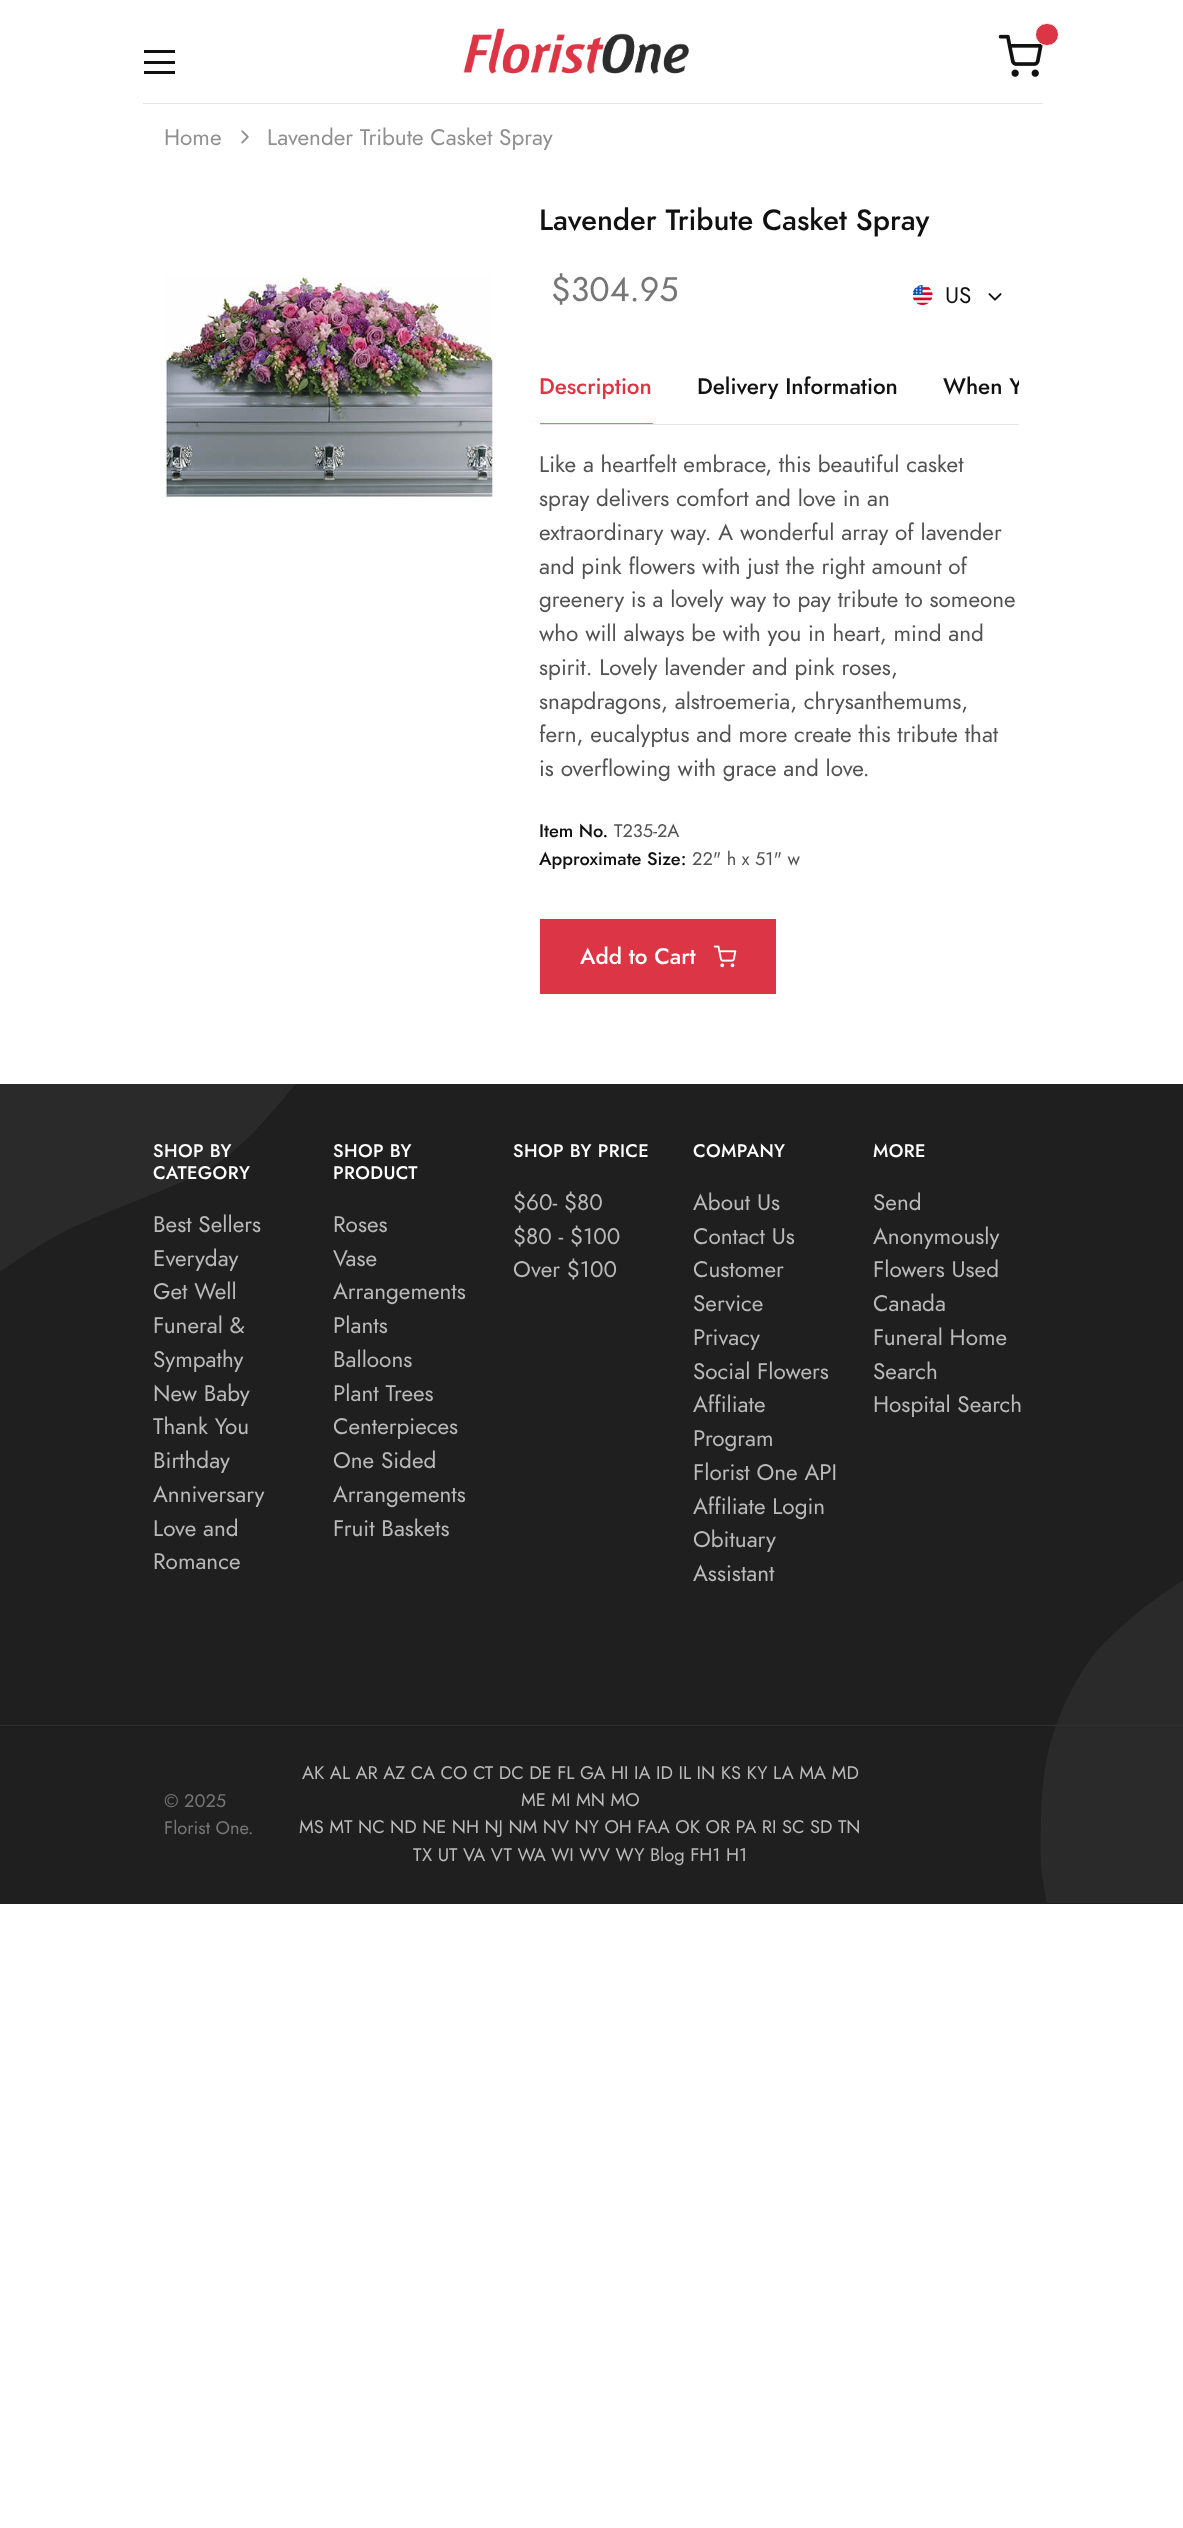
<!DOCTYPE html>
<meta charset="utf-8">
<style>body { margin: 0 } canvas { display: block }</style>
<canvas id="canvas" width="1183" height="2528"></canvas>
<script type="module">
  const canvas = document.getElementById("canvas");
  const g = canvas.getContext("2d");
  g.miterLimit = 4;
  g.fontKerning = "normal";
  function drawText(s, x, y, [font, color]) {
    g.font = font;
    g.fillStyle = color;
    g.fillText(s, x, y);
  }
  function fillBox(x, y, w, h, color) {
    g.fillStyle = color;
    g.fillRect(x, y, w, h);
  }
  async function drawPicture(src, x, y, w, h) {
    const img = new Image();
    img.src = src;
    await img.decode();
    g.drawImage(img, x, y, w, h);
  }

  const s1 = ["22.5px Jost", "#909090"];
  const s2 = ["500 29.25px Jost", "#111111"];
  const s3 = ["34px Jost", "#767676"];
  const s4 = ["22.5px Jost", "#111111"];
  const s5 = ["500 22.5px Jost", "#DC3545"];
  const s6 = ["500 22.5px Jost", "#111111"];
  const s7 = ["22.5px Jost", "#525252"];
  const s8 = ["500 18.25px Jost", "#111111"];
  const s9 = ["18.25px Jost", "#525252"];
  const s10 = ["500 22.5px Jost", "#FFFFFF"];
  const s11 = ["500 18.25px Jost", "#FFFFFF"];
  const s12 = ["22.5px Jost", "#BABABA"];
  const s13 = ["18.25px Jost", "#767676"];
  const s14 = ["18.25px Jost", "#BABABA"];

  fillBox(0, 0, 1183, 2528, "#FFFFFF");
  fillBox(143, 103, 900, 1, "#E5E5E5");
  fillBox(144, 50, 31, 3, "#111111");
  fillBox(144, 61, 31, 3, "#111111");
  fillBox(144, 71, 31, 3, "#111111");
  await drawPicture("pic1.png", 463, 28, 226, 46);
  await drawPicture("pic2.png", 998, 34, 45, 43);
  g.fillStyle = "#DC3545";
  g.beginPath();
  g.roundRect(1035.5, 23.5, 23, 22, 11);
  g.fill();
  g.strokeStyle = "#FFFFFF";
  g.stroke();
  drawText("Home", 164, 145, s1);
  await drawPicture("pic3.png", 241, 130, 8, 14);
  drawText("Lavender Tribute Casket Spray", 267, 145, s1);
  await drawPicture("pic4.png", 165, 275, 329, 223);
  drawText("Lavender Tribute Casket Spray", 539, 230, s2);
  drawText("$304.95", 551, 301, s3);
  await drawPicture("pic5.png", 913, 285, 20, 20);
  drawText("US", 945, 303, s4);
  await drawPicture("pic6.png", 988, 293, 14, 8);
  fillBox(540, 424, 479, 1, "#E5E5E5");
  drawText("Description", 539, 394, s5);
  fillBox(540, 423, 113, 1, "#FF6F61");
  drawText("Delivery Information", 697, 394, s6);
  g.save();
  g.beginPath();
  g.rect(540, 349, 479, 75);
  g.clip();
  drawText("When Y", 943, 394, s6);
  g.restore();
  drawText("Like a heartfelt embrace, this beautiful casket", 539, 472, s7);
  drawText("spray delivers comfort and love in an", 539, 506, s7);
  drawText("extraordinary way. A wonderful array of lavender", 539, 540, s7);
  drawText("and pink flowers with just the right amount of", 539, 574, s7);
  drawText("greenery is a lovely way to pay tribute to someone", 539, 607, s7);
  drawText("who will always be with you in heart, mind and", 539, 641, s7);
  drawText("spirit. Lovely lavender and pink roses,", 539, 675, s7);
  drawText("snapdragons, alstroemeria, chrysanthemums,", 539, 709, s7);
  drawText("fern, eucalyptus and more create this tribute that", 539, 742, s7);
  drawText("is overflowing with grace and love.", 539, 776, s7);
  drawText("Item No.", 539, 837, s8);
  drawText("T235-2A", 614, 837, s9);
  drawText("Approximate Size:", 539, 865, s8);
  drawText("22\" h x 51\" w", 692, 865, s9);
  fillBox(540, 919, 236, 75, "#DC3545");
  drawText("Add to Cart", 580, 964, s10);
  await drawPicture("pic7.png", 713, 945, 24, 23);
  fillBox(0, 1084, 1183, 820, "#1F1F1F");
  await drawPicture("pic8.png", 0, 1084, 1183, 819);
  fillBox(0, 1725, 1183, 1, "#303030");
  g.letterSpacing = "0.4px";
  drawText("SHOP BY", 153, 1157, s11);
  drawText("CATEGORY", 153, 1179, s11);
  g.letterSpacing = "0px";
  drawText("Best Sellers", 153, 1232, s12);
  drawText("Everyday", 153, 1266, s12);
  drawText("Get Well", 153, 1299, s12);
  drawText("Funeral &", 153, 1333, s12);
  drawText("Sympathy", 153, 1367, s12);
  drawText("New Baby", 153, 1401, s12);
  drawText("Thank You", 153, 1434, s12);
  drawText("Birthday", 153, 1468, s12);
  drawText("Anniversary", 153, 1502, s12);
  drawText("Love and", 153, 1536, s12);
  drawText("Romance", 153, 1569, s12);
  g.letterSpacing = "0.4px";
  drawText("SHOP BY", 333, 1157, s11);
  drawText("PRODUCT", 333, 1179, s11);
  g.letterSpacing = "0px";
  drawText("Roses", 333, 1232, s12);
  drawText("Vase", 333, 1266, s12);
  drawText("Arrangements", 333, 1299, s12);
  drawText("Plants", 333, 1333, s12);
  drawText("Balloons", 333, 1367, s12);
  drawText("Plant Trees", 333, 1401, s12);
  drawText("Centerpieces", 333, 1434, s12);
  drawText("One Sided", 333, 1468, s12);
  drawText("Arrangements", 333, 1502, s12);
  drawText("Fruit Baskets", 333, 1536, s12);
  g.letterSpacing = "0.4px";
  drawText("SHOP BY PRICE", 513, 1157, s11);
  g.letterSpacing = "0px";
  drawText("$60- $80", 513, 1210, s12);
  drawText("$80 - $100", 513, 1244, s12);
  drawText("Over $100", 513, 1277, s12);
  g.letterSpacing = "0.4px";
  drawText("COMPANY", 693, 1157, s11);
  g.letterSpacing = "0px";
  drawText("About Us", 693, 1210, s12);
  drawText("Contact Us", 693, 1244, s12);
  drawText("Customer", 693, 1277, s12);
  drawText("Service", 693, 1311, s12);
  drawText("Privacy", 693, 1345, s12);
  drawText("Social Flowers", 693, 1379, s12);
  drawText("Affiliate", 693, 1412, s12);
  drawText("Program", 693, 1446, s12);
  drawText("Florist One API", 693, 1480, s12);
  drawText("Affiliate Login", 693, 1514, s12);
  drawText("Obituary", 693, 1547, s12);
  drawText("Assistant", 693, 1581, s12);
  g.letterSpacing = "0.4px";
  drawText("MORE", 873, 1157, s11);
  g.letterSpacing = "0px";
  drawText("Send", 873, 1210, s12);
  drawText("Anonymously", 873, 1244, s12);
  drawText("Flowers Used", 873, 1277, s12);
  drawText("Canada", 873, 1311, s12);
  drawText("Funeral Home", 873, 1345, s12);
  drawText("Search", 873, 1379, s12);
  drawText("Hospital Search", 873, 1412, s12);
  drawText("© 2025", 164, 1807, s13);
  drawText("Florist One.", 164, 1834, s13);
  drawText("AK AL AR AZ CA CO CT DC DE FL GA HI IA ID IL IN KS KY LA MA MD", 302, 1779, s14);
  drawText("ME MI MN MO", 521, 1806, s14);
  drawText("MS MT NC ND NE NH NJ NM NV NY OH FAA OK OR PA RI SC SD TN", 299, 1833, s14);
  drawText("TX UT VA VT WA WI WV WY Blog FH1 H1", 413, 1861, s14);
</script>
